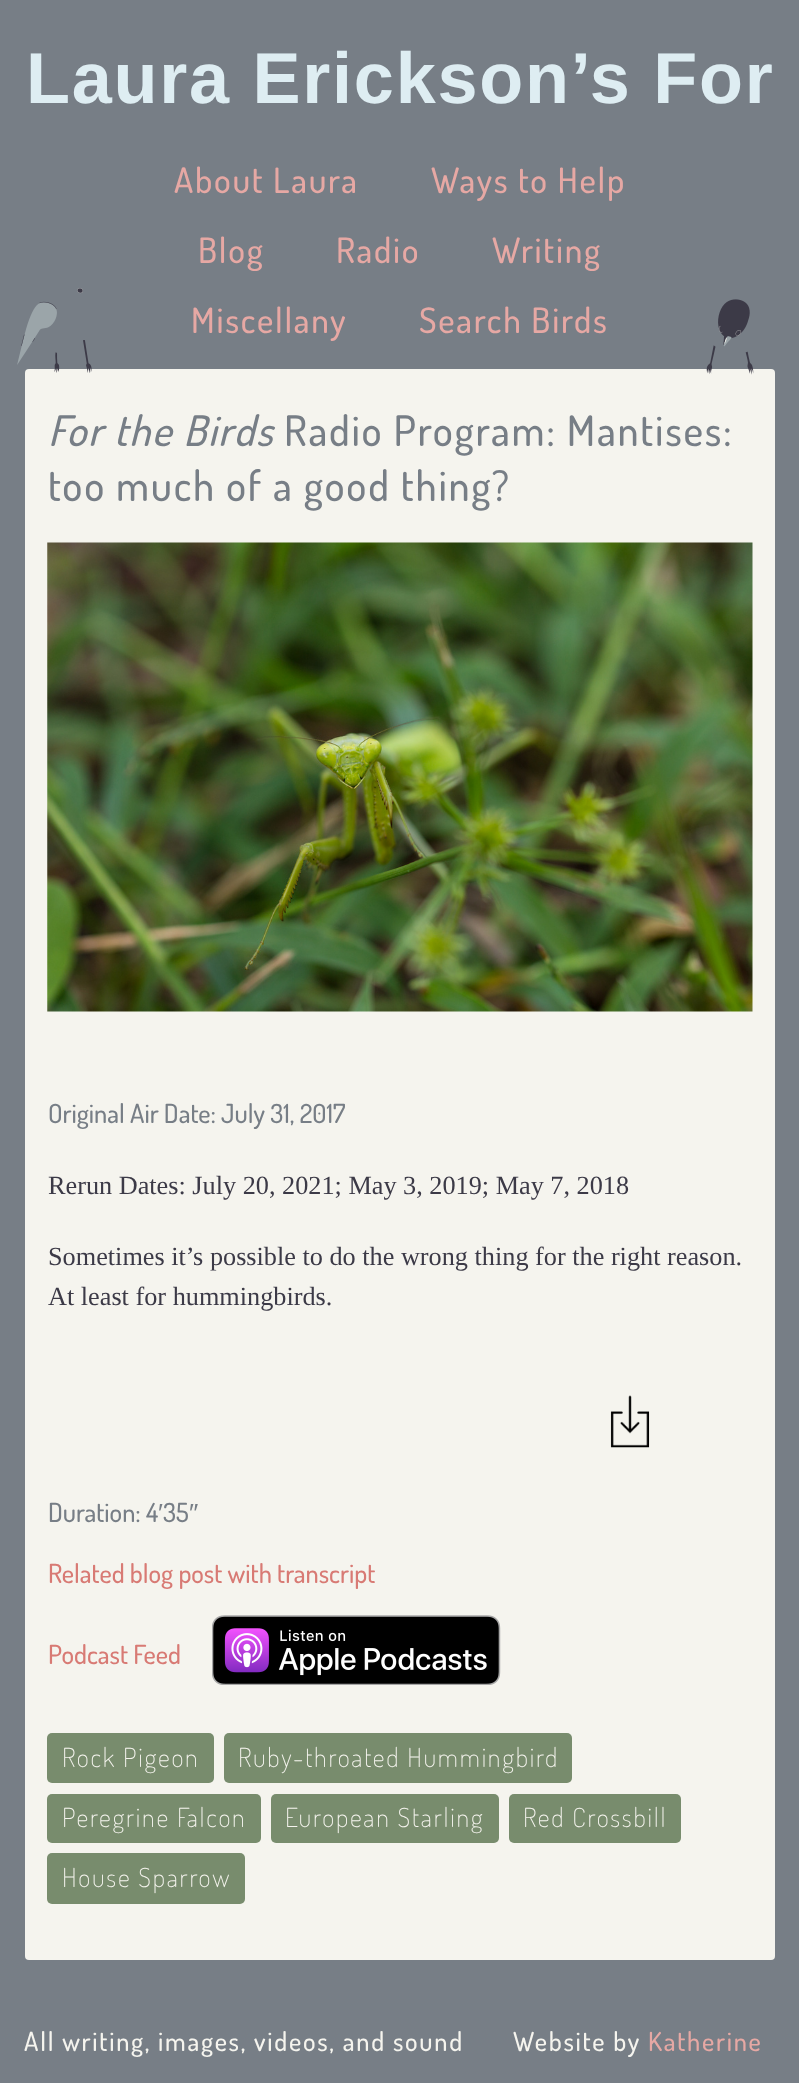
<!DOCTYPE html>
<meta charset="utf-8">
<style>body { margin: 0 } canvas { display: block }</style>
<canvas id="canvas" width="799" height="2083"></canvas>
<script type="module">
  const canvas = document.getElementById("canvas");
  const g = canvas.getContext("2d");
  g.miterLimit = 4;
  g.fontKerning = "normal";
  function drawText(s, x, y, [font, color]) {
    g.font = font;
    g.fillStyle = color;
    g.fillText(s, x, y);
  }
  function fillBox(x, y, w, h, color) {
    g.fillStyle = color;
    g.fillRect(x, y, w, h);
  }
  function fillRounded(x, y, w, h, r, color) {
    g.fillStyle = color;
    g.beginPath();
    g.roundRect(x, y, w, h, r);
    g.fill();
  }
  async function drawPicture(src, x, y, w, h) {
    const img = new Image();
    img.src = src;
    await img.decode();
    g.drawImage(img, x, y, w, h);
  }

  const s1 = ["bold 72px Liberation Sans", "#DEEDF2"];
  const s2 = ["500 35px Dosis", "#E6A8A4"];
  const s3 = ["italic 500 42px Dosis", "#777E86"];
  const s4 = ["500 42px Dosis", "#777E86"];
  const s5 = ["500 26.25px Dosis", "#777E86"];
  const s6 = ["26.25px Liberation Serif", "#3C3A47"];
  const s7 = ["26.25px Liberation Sans", "#777E86"];
  const s8 = ["500 26.25px Dosis", "#D87A74"];
  const s9 = ["200 26.25px Dosis", "#F5F4EE"];
  const s10 = ["500 26.25px Dosis", "#F5F4EE"];
  const s11 = ["500 26.25px Dosis", "#E6A8A4"];

  fillBox(0, 0, 799, 2083, "#777E86");
  g.letterSpacing = "1.75px";
  drawText("Laura Erickson’s For", 26, 103, s1);
  drawText("About Laura", 174, 193, s2);
  drawText("Ways to Help", 431, 193, s2);
  drawText("Blog", 198, 263, s2);
  drawText("Radio", 336, 263, s2);
  drawText("Writing", 492, 263, s2);
  drawText("Miscellany", 191, 333, s2);
  drawText("Search Birds", 419, 333, s2);
  fillRounded(25, 369, 750, 1591, 4, "#F5F4EE");
  await drawPicture("pic1.png", 17, 288, 75, 85);
  await drawPicture("pic2.png", 706, 299, 48, 76);
  drawText("For the Birds", 48, 446, s3);
  drawText("Radio Program: Mantises:", 284, 446, s4);
  drawText("too much of a good thing?", 48, 501, s4);
  await drawPicture("pic3.png", 47, 542, 706, 470);
  g.letterSpacing = "0px";
  drawText("Original Air Date: July 31, 2017", 48, 1123, s5);
  drawText("Rerun Dates: July 20, 2021; May 3, 2019; May 7, 2018", 48, 1194, s6);
  drawText("Sometimes it’s possible to do the wrong thing for the right reason.", 48, 1265, s6);
  drawText("At least for hummingbirds.", 48, 1305, s6);
  await drawPicture("pic4.png", 610, 1395, 40, 53);
  drawText("Duration: 4", 48, 1522, s5);
  drawText("′", 158, 1522, s7);
  drawText("35", 163, 1522, s5);
  drawText("″", 189, 1522, s7);
  drawText("Related blog post with transcript", 48, 1583, s8);
  drawText("Podcast Feed", 48, 1664, s8);
  await drawPicture("pic5.png", 212, 1615, 289, 70);
  fillRounded(47, 1733, 167, 50, 5, "#788C6D");
  g.letterSpacing = "1.75px";
  drawText("Rock Pigeon", 62, 1767, s9);
  fillRounded(224, 1733, 348, 50, 5, "#788C6D");
  drawText("Ruby-throated Hummingbird", 238, 1767, s9);
  fillRounded(47, 1794, 214, 49, 5, "#788C6D");
  drawText("Peregrine Falcon", 62, 1827, s9);
  fillRounded(271, 1794, 228, 49, 5, "#788C6D");
  drawText("European Starling", 285, 1827, s9);
  fillRounded(509, 1794, 172, 49, 5, "#788C6D");
  drawText("Red Crossbill", 523, 1827, s9);
  fillRounded(47, 1853, 198, 51, 5, "#788C6D");
  drawText("House Sparrow", 62, 1887, s9);
  drawText("All writing, images, videos, and sound", 24, 2051, s10);
  drawText("Website by", 513, 2051, s10);
  drawText("Katherine", 648, 2051, s11);
</script>
